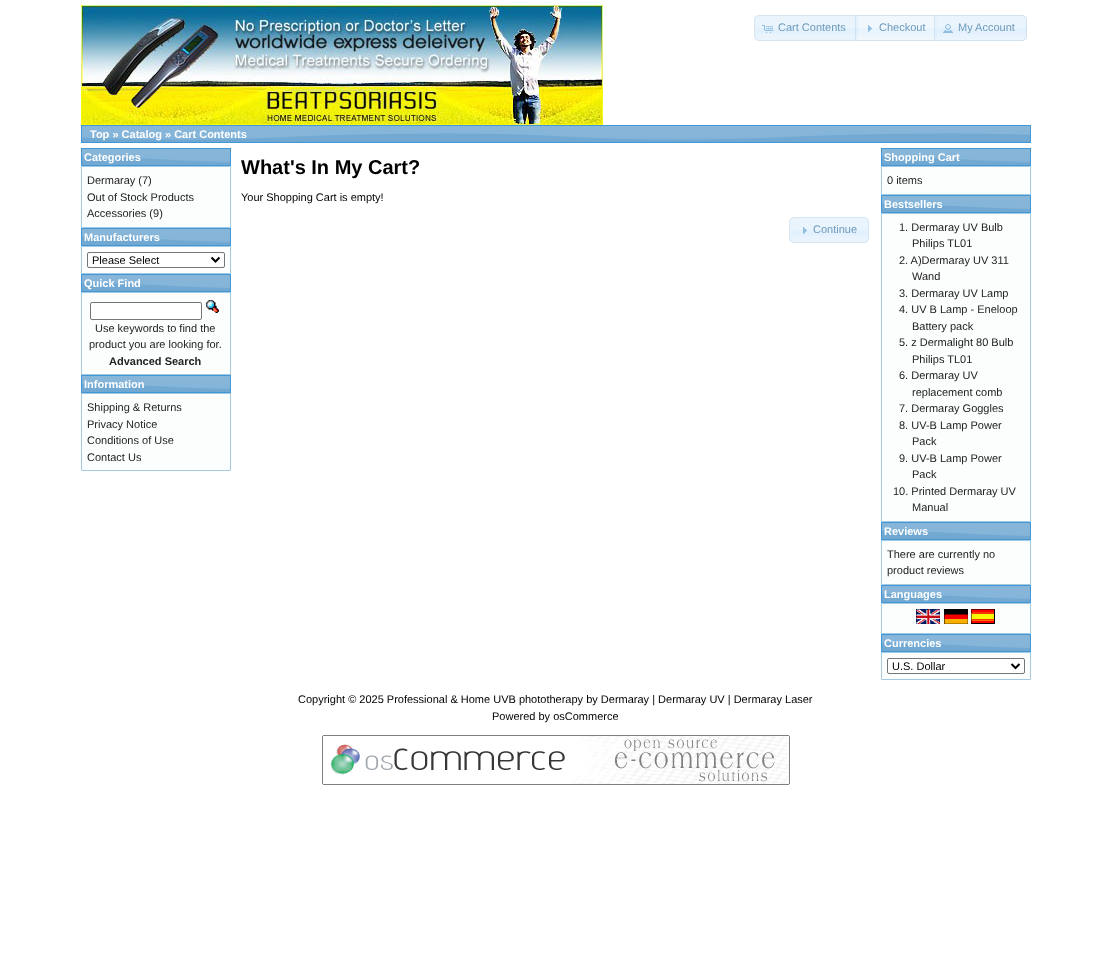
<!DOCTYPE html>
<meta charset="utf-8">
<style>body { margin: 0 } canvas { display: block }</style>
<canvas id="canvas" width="1111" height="978"></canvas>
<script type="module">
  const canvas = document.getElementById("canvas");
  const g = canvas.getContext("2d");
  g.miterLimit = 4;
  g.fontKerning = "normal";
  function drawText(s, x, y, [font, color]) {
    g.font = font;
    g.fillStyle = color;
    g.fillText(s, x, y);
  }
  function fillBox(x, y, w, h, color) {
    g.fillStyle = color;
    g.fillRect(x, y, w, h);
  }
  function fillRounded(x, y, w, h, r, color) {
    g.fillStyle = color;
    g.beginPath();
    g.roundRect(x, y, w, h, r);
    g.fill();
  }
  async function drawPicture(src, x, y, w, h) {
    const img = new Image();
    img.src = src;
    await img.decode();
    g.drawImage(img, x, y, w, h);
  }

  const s1 = ["11px Liberation Sans", "#6D9ABB"];
  const s2 = ["bold 11px Liberation Sans", "#FFFFFF"];
  const s3 = ["11px Liberation Sans", "#222222"];
  const s4 = ["11px Liberation Sans", "#000000"];
  const s5 = ["bold 11px Liberation Sans", "#222222"];
  const s6 = ["bold 20px Liberation Sans", "#000000"];

  fillBox(0, 0, 1111, 978, "#FFFFFF");
  await drawPicture("pic1.png", 81, 5, 522, 120);
  g.fillStyle = "#E9F4FD";
  g.beginPath();
  g.roundRect(754, 15, 104, 26, [5, 0, 0, 5]);
  g.fill();
  fillBox(754, 28, 104, 6, "#E2F1FC");
  g.beginPath();
  g.roundRect(754.5, 15.5, 103, 25, [4.5, 0, 0, 4.5]);
  g.strokeStyle = "#D6E6F2";
  g.stroke();
  await drawPicture("pic2.png", 762, 25, 11, 8);
  drawText("Cart Contents", 778, 31, s1);
  await drawPicture("pic3.png", 855, 15, 82, 26);
  g.strokeStyle = "rgba(197, 219, 236, 0.7)";
  g.strokeRect(855.5, 15.5, 81, 25);
  await drawPicture("pic4.png", 868, 25, 4, 7);
  drawText("Checkout", 879, 31, s1);
  g.fillStyle = "rgba(223, 239, 252, 0.7)";
  g.beginPath();
  g.roundRect(934, 15, 93, 26, [0, 5, 5, 0]);
  g.fill();
  await drawPicture("pic5.png", 934, 15, 93, 26);
  g.beginPath();
  g.roundRect(934.5, 15.5, 92, 25, [0, 4.5, 4.5, 0]);
  g.stroke();
  await drawPicture("pic6.png", 943, 24, 10, 9);
  drawText("My Account", 958, 31, s1);
  await drawPicture("pic7.png", 82, 126, 948, 16);
  g.strokeStyle = "#4297D7";
  g.strokeRect(81.5, 125.5, 949, 17);
  drawText("Top » Catalog » Cart Contents", 90, 138, s2);
  await drawPicture("pic8.png", 82, 149, 148, 16);
  g.strokeRect(81.5, 148.5, 149, 17);
  drawText("Categories", 84, 161, s2);
  g.fillStyle = "#FCFDFD";
  g.beginPath();
  g.rect(81.5, 166.5, 149, 61);
  g.fill();
  g.strokeStyle = "#A6C9E2";
  g.stroke();
  drawText("Dermaray (7)", 87, 184, s3);
  drawText("Out of Stock Products", 87, 201, s3);
  drawText("Accessories (9)", 87, 217, s3);
  await drawPicture("pic8.png", 82, 229, 148, 16);
  g.strokeStyle = "#4297D7";
  g.strokeRect(81.5, 228.5, 149, 17);
  drawText("Manufacturers", 84, 241, s2);
  g.fillStyle = "#FCFDFD";
  g.beginPath();
  g.rect(81.5, 246.5, 149, 27);
  g.fill();
  g.strokeStyle = "#A6C9E2";
  g.stroke();
  g.fillStyle = "#FFFFFF";
  g.beginPath();
  g.roundRect(87.5, 252.5, 137, 15, 1.5);
  g.fill();
  g.strokeStyle = "#767676";
  g.stroke();
  g.beginPath();
  g.moveTo(211.5, 257.5);
  g.lineTo(215.5, 261.5);
  g.lineTo(219.5, 257.5);
  g.strokeStyle = "#000000";
  g.lineWidth = 2;
  g.stroke();
  drawText("Please Select", 92, 264, s4);
  await drawPicture("pic8.png", 82, 275, 148, 16);
  g.strokeStyle = "#4297D7";
  g.lineWidth = 1;
  g.strokeRect(81.5, 274.5, 149, 17);
  drawText("Quick Find", 84, 287, s2);
  g.fillStyle = "#FCFDFD";
  g.beginPath();
  g.rect(81.5, 292.5, 149, 82);
  g.fill();
  g.strokeStyle = "#A6C9E2";
  g.stroke();
  g.fillStyle = "#FFFFFF";
  g.beginPath();
  g.roundRect(90.5, 302.5, 111, 17, 1.5);
  g.fill();
  g.strokeStyle = "#767676";
  g.stroke();
  await drawPicture("pic9.png", 206, 300, 13, 13);
  drawText("Use keywords to find the", 95, 332, s3);
  drawText("product you are looking for.", 89, 348, s3);
  drawText("Advanced Search", 109, 365, s5);
  await drawPicture("pic8.png", 82, 376, 148, 16);
  g.strokeStyle = "#4297D7";
  g.strokeRect(81.5, 375.5, 149, 17);
  drawText("Information", 84, 388, s2);
  g.fillStyle = "#FCFDFD";
  g.beginPath();
  g.rect(81.5, 393.5, 149, 77);
  g.fill();
  g.strokeStyle = "#A6C9E2";
  g.stroke();
  drawText("Shipping & Returns", 87, 411, s3);
  drawText("Privacy Notice", 87, 428, s3);
  drawText("Conditions of Use", 87, 444, s3);
  drawText("Contact Us", 87, 461, s3);
  drawText("What's In My Cart?", 241, 174, s6);
  drawText("Your Shopping Cart is empty!", 241, 201, s4);
  fillRounded(789, 217, 80, 26, 5, "#E9F4FD");
  await drawPicture("pic10.png", 789, 230, 80, 12);
  g.beginPath();
  g.roundRect(789.5, 217.5, 79, 25, 4.5);
  g.strokeStyle = "#D6E6F2";
  g.stroke();
  await drawPicture("pic11.png", 803, 227, 4, 7);
  drawText("Continue", 813, 233, s1);
  await drawPicture("pic8.png", 882, 149, 148, 16);
  g.strokeStyle = "#4297D7";
  g.strokeRect(881.5, 148.5, 149, 17);
  drawText("Shopping Cart", 884, 161, s2);
  g.fillStyle = "#FCFDFD";
  g.beginPath();
  g.rect(881.5, 166.5, 149, 28);
  g.fill();
  g.strokeStyle = "#A6C9E2";
  g.stroke();
  drawText("0 items", 887, 184, s3);
  await drawPicture("pic8.png", 882, 196, 148, 16);
  g.strokeStyle = "#4297D7";
  g.strokeRect(881.5, 195.5, 149, 17);
  drawText("Bestsellers", 884, 208, s2);
  g.fillStyle = "#FCFDFD";
  g.beginPath();
  g.rect(881.5, 213.5, 149, 308);
  g.fill();
  g.strokeStyle = "#A6C9E2";
  g.stroke();
  drawText("1. Dermaray UV Bulb", 899, 231, s3);
  drawText("Philips TL01", 912, 247, s3);
  drawText("2. A)Dermaray UV 311", 899, 264, s3);
  drawText("Wand", 912, 280, s3);
  drawText("3. Dermaray UV Lamp", 899, 297, s3);
  drawText("4. UV B Lamp - Eneloop", 899, 313, s3);
  drawText("Battery pack", 912, 330, s3);
  drawText("5. z Dermalight 80 Bulb", 899, 346, s3);
  drawText("Philips TL01", 912, 363, s3);
  drawText("6. Dermaray UV", 899, 379, s3);
  drawText("replacement comb", 912, 396, s3);
  drawText("7. Dermaray Goggles", 899, 412, s3);
  drawText("8. UV-B Lamp Power", 899, 429, s3);
  drawText("Pack", 912, 445, s3);
  drawText("9. UV-B Lamp Power", 899, 462, s3);
  drawText("Pack", 912, 478, s3);
  drawText("10. Printed Dermaray UV", 893, 495, s3);
  drawText("Manual", 912, 511, s3);
  await drawPicture("pic8.png", 882, 523, 148, 16);
  g.strokeStyle = "#4297D7";
  g.strokeRect(881.5, 522.5, 149, 17);
  drawText("Reviews", 884, 535, s2);
  g.fillStyle = "#FCFDFD";
  g.beginPath();
  g.rect(881.5, 540.5, 149, 44);
  g.fill();
  g.strokeStyle = "#A6C9E2";
  g.stroke();
  drawText("There are currently no", 887, 558, s3);
  drawText("product reviews", 887, 574, s3);
  await drawPicture("pic8.png", 882, 586, 148, 16);
  g.strokeStyle = "#4297D7";
  g.strokeRect(881.5, 585.5, 149, 17);
  drawText("Languages", 884, 598, s2);
  g.fillStyle = "#FCFDFD";
  g.beginPath();
  g.rect(881.5, 603.5, 149, 30);
  g.fill();
  g.strokeStyle = "#A6C9E2";
  g.stroke();
  await drawPicture("pic12.png", 916, 609, 24, 15);
  await drawPicture("pic13.png", 944, 609, 24, 15);
  await drawPicture("pic14.png", 971, 609, 24, 15);
  await drawPicture("pic8.png", 882, 635, 148, 16);
  g.strokeStyle = "#4297D7";
  g.strokeRect(881.5, 634.5, 149, 17);
  drawText("Currencies", 884, 647, s2);
  g.fillStyle = "#FCFDFD";
  g.beginPath();
  g.rect(881.5, 652.5, 149, 27);
  g.fill();
  g.strokeStyle = "#A6C9E2";
  g.stroke();
  g.fillStyle = "#FFFFFF";
  g.beginPath();
  g.roundRect(887.5, 658.5, 137, 15, 1.5);
  g.fill();
  g.strokeStyle = "#767676";
  g.stroke();
  g.beginPath();
  g.moveTo(1011.5, 664);
  g.lineTo(1015.5, 668);
  g.lineTo(1019.5, 664);
  g.strokeStyle = "#000000";
  g.lineWidth = 2;
  g.stroke();
  drawText("U.S. Dollar", 892, 670, s4);
  drawText("Copyright © 2025 Professional & Home UVB phototherapy by Dermaray | Dermaray UV | Dermaray Laser", 298, 703, s4);
  drawText("Powered by osCommerce", 492, 720, s4);
  await drawPicture("pic15.png", 322, 735, 468, 50);
</script>
